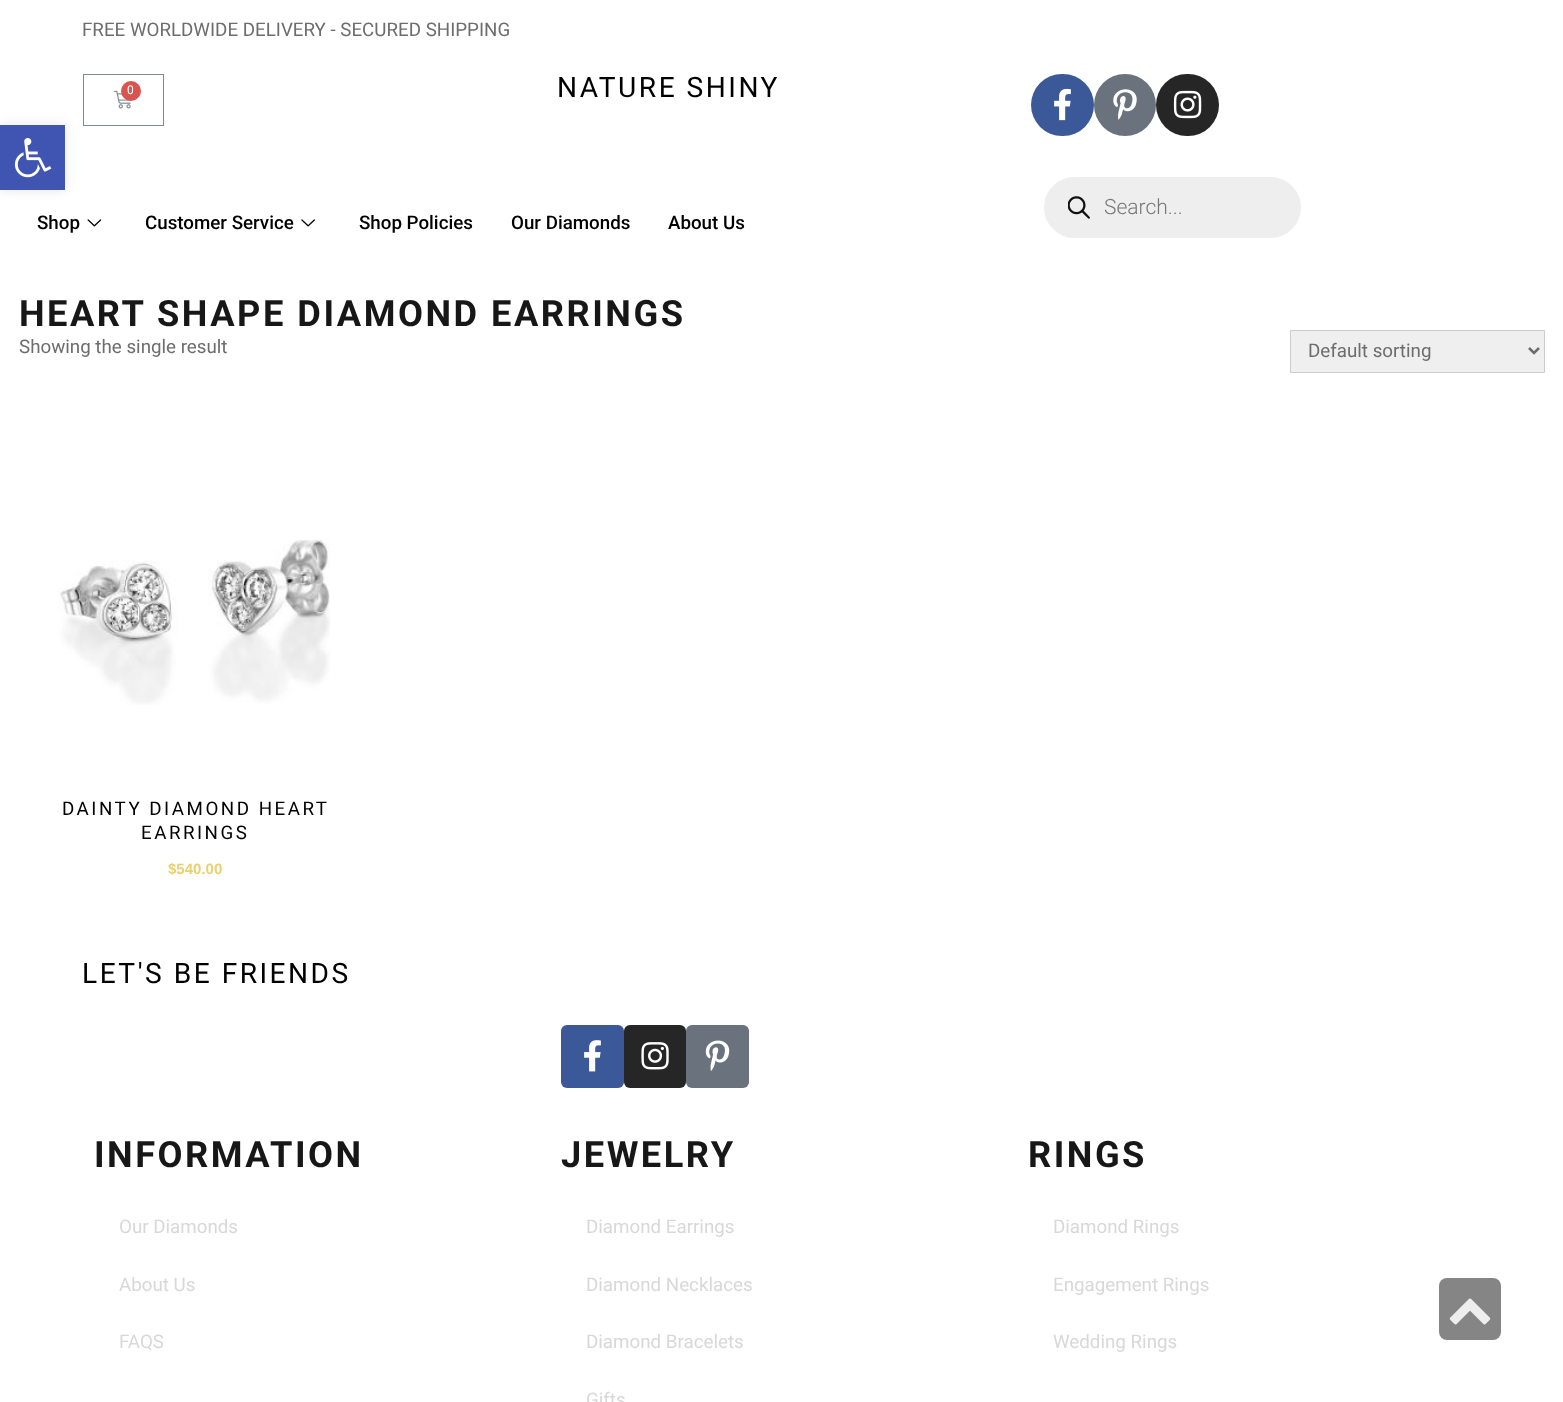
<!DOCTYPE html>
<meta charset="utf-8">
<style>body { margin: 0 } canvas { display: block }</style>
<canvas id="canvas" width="1563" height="1402"></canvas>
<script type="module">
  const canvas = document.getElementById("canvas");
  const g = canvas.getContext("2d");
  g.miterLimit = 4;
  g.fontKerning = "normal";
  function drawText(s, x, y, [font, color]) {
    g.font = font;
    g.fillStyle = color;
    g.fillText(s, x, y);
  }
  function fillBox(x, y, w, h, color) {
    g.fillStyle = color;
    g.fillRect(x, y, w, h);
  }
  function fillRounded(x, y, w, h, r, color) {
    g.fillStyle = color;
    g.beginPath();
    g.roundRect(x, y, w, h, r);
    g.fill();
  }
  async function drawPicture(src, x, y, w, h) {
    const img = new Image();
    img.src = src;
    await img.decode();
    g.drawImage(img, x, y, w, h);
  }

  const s1 = ["18.75px Roboto", "#6D6D6D"];
  const s2 = ["12px Roboto", "#FFFFFF"];
  const s3 = ["28.1px Roboto", "#000000"];
  const s4 = ["300 21px Roboto", "#777777"];
  const s5 = ["500 18.75px Roboto", "#000000"];
  const s6 = ["bold 36.25px Roboto", "#171717"];
  const s7 = ["18.75px Roboto", "#000000"];
  const s8 = ["bold 15px Liberation Sans", "#EBD06F"];
  const s9 = ["18.75px Roboto", "#D8D8D8"];

  fillBox(0, 0, 1563, 1402, "#FFFFFF");
  drawText("FREE WORLDWIDE DELIVERY - SECURED SHIPPING", 82, 36, s1);
  g.strokeStyle = "#818A91";
  g.strokeRect(83.5, 74.5, 80, 51);
  await drawPicture("pic1.png", 114, 90, 17, 19);
  g.fillStyle = "#D9534F";
  g.beginPath();
  g.arc(131, 91, 10, 0, Math.PI * 2);
  g.fill();
  drawText("0", 127, 94, s2);
  g.letterSpacing = "2.5px";
  drawText("NATURE SHINY", 557, 97, s3);
  fillRounded(1031, 74, 63, 62, 31, "#3B5998");
  await drawPicture("pic2.png", 1054, 88, 17, 33);
  g.fillStyle = "#69727D";
  g.beginPath();
  g.arc(1125, 105, 31, 0, Math.PI * 2);
  g.fill();
  await drawPicture("pic3.png", 1113, 89, 24, 31);
  fillRounded(1156, 74, 63, 62, 31, "#262626");
  await drawPicture("pic4.png", 1173, 90, 29, 29);
  g.fillStyle = "#EEEEEE";
  g.beginPath();
  g.roundRect(1042.5, 175.5, 260, 64, 32);
  g.fill();
  g.strokeStyle = "#FFFFFF";
  g.lineWidth = 3;
  g.stroke();
  await drawPicture("pic5.png", 1068, 196, 22, 23);
  g.letterSpacing = "0px";
  drawText("Search...", 1104, 214, s4);
  drawText("Shop", 37, 229, s5);
  await drawPicture("pic6.png", 87, 219, 15, 8);
  drawText("Customer Service", 145, 229, s5);
  await drawPicture("pic7.png", 301, 219, 14, 8);
  drawText("Shop Policies", 359, 229, s5);
  drawText("Our Diamonds", 511, 229, s5);
  drawText("About Us", 668, 229, s5);
  g.fillStyle = "rgba(0, 0, 0, 0.1)";
  g.filter = "blur(6px)";
  g.beginPath();
  g.rect(0, 125, 65, 65);
  g.fill();
  g.filter = "none";
  fillBox(0, 125, 65, 65, "#4054B2");
  await drawPicture("pic8.png", 14, 138, 38, 40);
  g.letterSpacing = "2.5px";
  drawText("HEART SHAPE DIAMOND EARRINGS", 19, 326, s6);
  g.letterSpacing = "0px";
  drawText("Showing the single result", 19, 353, s1);
  g.fillStyle = "#EFEFEF";
  g.beginPath();
  g.rect(1290.5, 330.5, 254, 42);
  g.fill();
  g.strokeStyle = "#CCCCCC";
  g.lineWidth = 1;
  g.stroke();
  g.beginPath();
  g.moveTo(1529, 348);
  g.lineTo(1534, 353);
  g.lineTo(1539, 348);
  g.strokeStyle = "#6D6D6D";
  g.lineWidth = 2.5;
  g.stroke();
  drawText("Default sorting", 1308, 357, s1);
  await drawPicture("pic9.png", 58, 539, 272, 166);
  g.letterSpacing = "2.5px";
  drawText("DAINTY DIAMOND HEART", 62, 815, s7);
  drawText("EARRINGS", 141, 839, s7);
  g.letterSpacing = "0px";
  drawText("$540.00", 168, 874, s8);
  g.letterSpacing = "2.5px";
  drawText("LET'S BE FRIENDS", 82, 983, s3);
  fillRounded(561, 1025, 63, 63, 6, "#3B5998");
  await drawPicture("pic10.png", 584, 1040, 17, 32);
  fillRounded(624, 1025, 62, 63, 6, "#262626");
  await drawPicture("pic11.png", 641, 1042, 28, 28);
  fillRounded(686, 1025, 63, 63, 6, "#69727D");
  await drawPicture("pic12.png", 705, 1040, 25, 31);
  drawText("INFORMATION", 94, 1167, s6);
  g.letterSpacing = "0px";
  drawText("Our Diamonds", 119, 1233, s9);
  drawText("About Us", 119, 1291, s9);
  drawText("FAQS", 119, 1348, s9);
  g.letterSpacing = "2.5px";
  drawText("JEWELRY", 561, 1167, s6);
  g.letterSpacing = "0px";
  drawText("Diamond Earrings", 586, 1233, s9);
  drawText("Diamond Necklaces", 586, 1291, s9);
  drawText("Diamond Bracelets", 586, 1348, s9);
  drawText("Gifts", 586, 1406, s9);
  g.letterSpacing = "2.5px";
  drawText("RINGS", 1028, 1167, s6);
  g.letterSpacing = "0px";
  drawText("Diamond Rings", 1053, 1233, s9);
  drawText("Engagement Rings", 1053, 1291, s9);
  drawText("Wedding Rings", 1053, 1348, s9);
  fillRounded(1439, 1278, 62, 62, 8, "#858585");
  await drawPicture("pic13.png", 1449, 1298, 42, 27);
</script>
